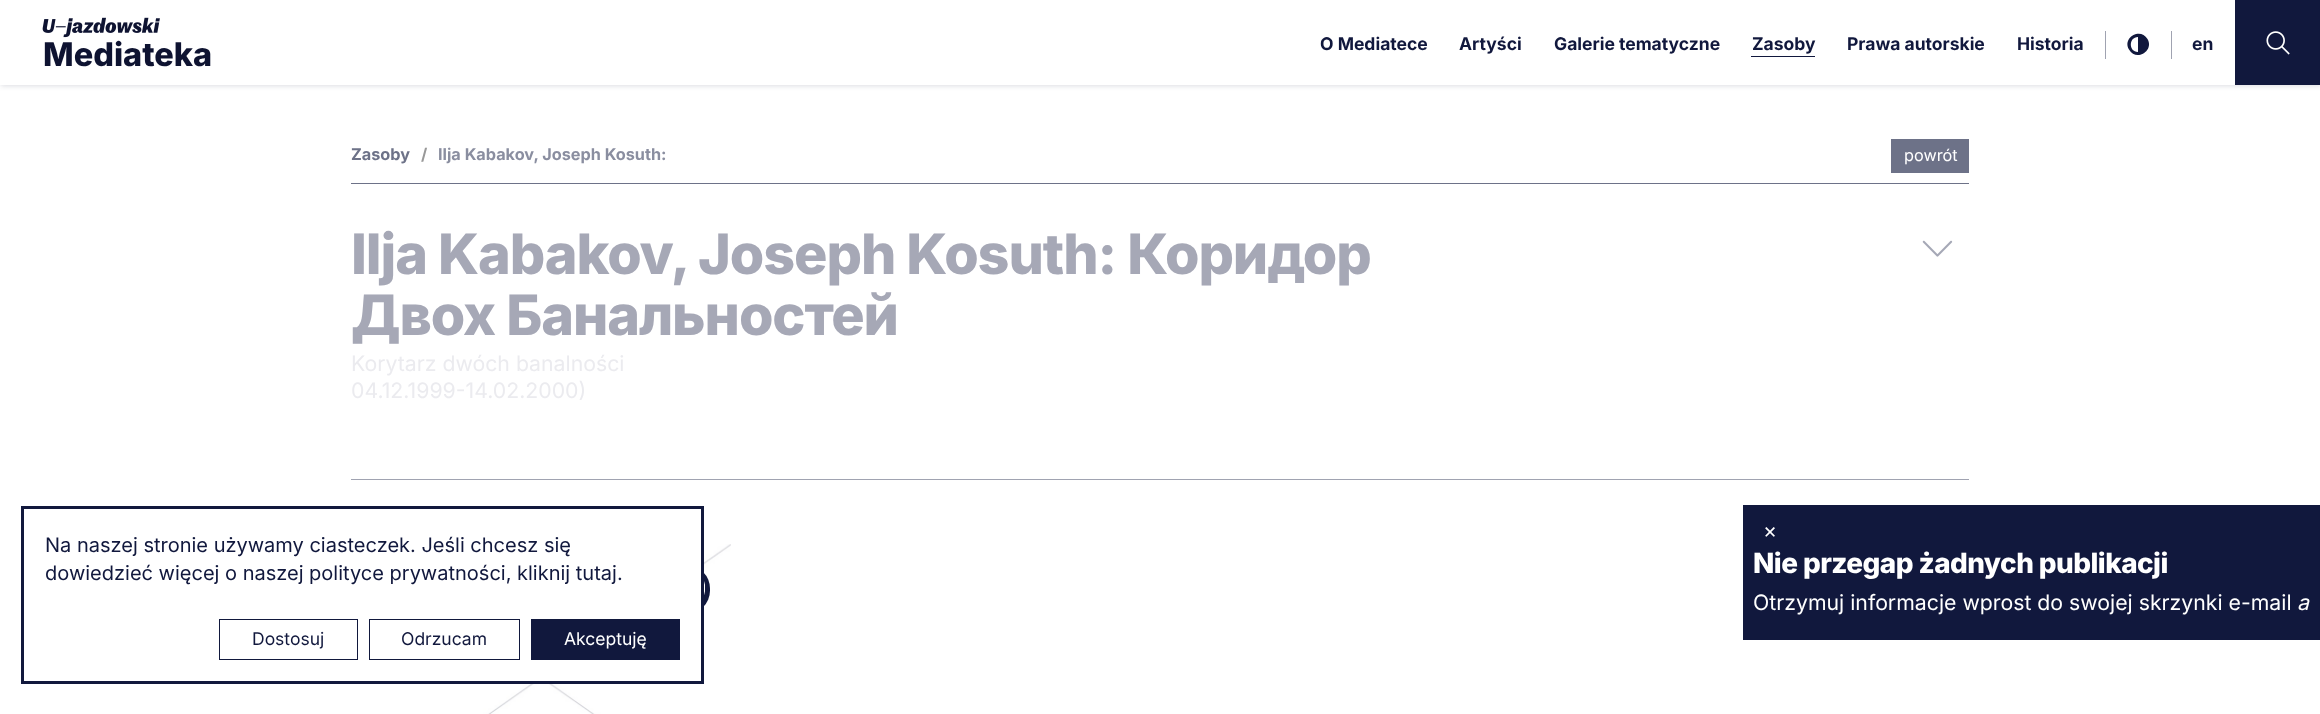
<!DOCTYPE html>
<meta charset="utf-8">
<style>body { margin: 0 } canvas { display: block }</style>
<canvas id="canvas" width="2320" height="714"></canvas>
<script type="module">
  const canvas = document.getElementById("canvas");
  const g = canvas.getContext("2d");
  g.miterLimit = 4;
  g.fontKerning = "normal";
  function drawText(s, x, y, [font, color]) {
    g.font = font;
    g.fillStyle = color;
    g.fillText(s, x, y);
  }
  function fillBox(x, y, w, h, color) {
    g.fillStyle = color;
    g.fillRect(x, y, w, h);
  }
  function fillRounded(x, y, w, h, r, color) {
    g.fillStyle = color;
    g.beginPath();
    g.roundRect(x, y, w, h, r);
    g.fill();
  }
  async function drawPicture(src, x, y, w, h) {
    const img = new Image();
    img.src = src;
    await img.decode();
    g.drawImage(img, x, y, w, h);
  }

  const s1 = ["800 32.5px Inter", "#0E1331"];
  const s2 = ["bold 17.5px Inter", "#11183D"];
  const s3 = ["bold 16.25px Inter", "#6D7288"];
  const s4 = ["bold 16.25px Inter", "#999999"];
  const s5 = ["bold 16.25px Inter", "#8A8EA0"];
  const s6 = ["16.25px Inter", "#FFFFFF"];
  const s7 = ["800 55.75px Inter", "#A6A8B6"];
  const s8 = ["21.25px Inter", "#EBEBEF"];
  const s9 = ["21.25px Inter", "#FFFFFF"];
  const s10 = ["800 27.9px Inter", "#FFFFFF"];
  const s11 = ["italic 21.25px Inter", "#FFFFFF"];
  const s12 = ["20px Inter", "#11183D"];
  const s13 = ["17.5px Inter", "#11183D"];
  const s14 = ["17.5px Inter", "#FFFFFF"];

  fillBox(0, 0, 2320, 714, "#FFFFFF");
  g.fillStyle = "rgba(17, 24, 61, 0.15)";
  g.filter = "blur(2.5px)";
  g.beginPath();
  g.rect(1, 1, 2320, 85);
  g.fill();
  g.filter = "none";
  fillBox(0, 0, 2235, 85, "#FFFFFF");
  await drawPicture("pic1.png", 42, 17, 118, 21);
  drawText("Mediateka", 43, 66, s1);
  drawText("O Mediatece", 1320, 50, s2);
  drawText("Artyści", 1459, 50, s2);
  drawText("Galerie tematyczne", 1554, 50, s2);
  drawText("Zasoby", 1752, 50, s2);
  fillBox(1751, 56, 64, 1, "#11183D");
  drawText("Prawa autorskie", 1847, 50, s2);
  drawText("Historia", 2017, 50, s2);
  fillBox(2105, 31, 1, 28, "#A0A3B1");
  g.fillStyle = "#11183D";
  g.beginPath();
  g.moveTo(2147.5, 39);
  g.bezierCurveTo(2140.5, 27, 2122, 37.5, 2129, 49.5);
  g.bezierCurveTo(2136, 62, 2154.5, 51, 2147.5, 39);
  g.closePath();
  g.moveTo(2138, 52);
  g.bezierCurveTo(2128.5, 52, 2128.5, 37, 2138, 37);
  g.closePath();
  g.fill();
  fillBox(2171, 31, 1, 28, "#A0A3B1");
  drawText("en", 2192, 50, s2);
  fillBox(2235, 0, 85, 85, "#11183D");
  await drawPicture("pic2.png", 2266, 31, 24, 24);
  fillBox(351, 183, 1618, 1, "#6D7288");
  drawText("Zasoby", 351, 160, s3);
  drawText("/", 421, 160, s4);
  drawText("Ilja Kabakov, Joseph Kosuth:", 438, 160, s5);
  fillBox(1891, 139, 78, 34, "#6D7288");
  drawText("powrót", 1904, 161, s6);
  g.letterSpacing = "-1.1px";
  drawText("Ilja Kabakov, Joseph Kosuth: Коридор", 351, 274, s7);
  drawText("Двох Банальностей", 351, 335, s7);
  g.letterSpacing = "0px";
  drawText("Korytarz dwóch banalności", 351, 371, s8);
  drawText("04.12.1999-14.02.2000)", 351, 398, s8);
  await drawPicture("pic3.png", 1922, 240, 31, 17);
  fillBox(351, 479, 1618, 1, "#A0A3B1");
  await drawPicture("pic4.png", 351, 544, 380, 170);
  fillRounded(663, 565, 47, 49, 23.5, "#11183D");
  g.save();
  g.beginPath();
  g.rect(665, 568, 40, 41);
  g.clip();
  g.fillStyle = "#FFFFFF";
  g.beginPath();
  g.moveTo(685, 568);
  g.bezierCurveTo(659, 568, 659, 608, 685, 608);
  g.bezierCurveTo(712, 608, 712, 568, 685, 568);
  g.closePath();
  g.moveTo(693, 588);
  g.lineTo(683, 595);
  g.bezierCurveTo(679, 597, 680, 596, 680, 590);
  g.lineTo(680, 579);
  g.bezierCurveTo(682, 579, 688, 584, 689, 584);
  g.bezierCurveTo(692, 586, 695, 587, 693, 588);
  g.closePath();
  g.fill();
  g.restore();
  fillBox(1743, 505, 577, 135, "#11183D");
  drawText("×", 1763, 538, s9);
  g.letterSpacing = "-0.55px";
  drawText("Nie przegap żadnych publikacji", 1753, 573, s10);
  g.letterSpacing = "0px";
  drawText("Otrzymuj informacje wprost do swojej skrzynki e-mail", 1753, 610, s9);
  drawText("a", 2297, 610, s11);
  fillBox(351, 544, 350, 137, "#FFFFFF");
  g.strokeStyle = "#11183D";
  g.lineWidth = 3;
  g.strokeRect(22.5, 507.5, 680, 175);
  drawText("Na naszej stronie używamy ciasteczek. Jeśli chcesz się", 45, 552, s12);
  drawText("dowiedzieć więcej o naszej polityce prywatności, kliknij tutaj.", 45, 580, s12);
  g.lineWidth = 1;
  g.strokeRect(219.5, 619.5, 138, 40);
  drawText("Dostosuj", 252, 645, s13);
  g.strokeRect(369.5, 619.5, 150, 40);
  drawText("Odrzucam", 401, 645, s13);
  fillBox(531, 619, 149, 41, "#11183D");
  drawText("Akceptuję", 564, 645, s14);
</script>
